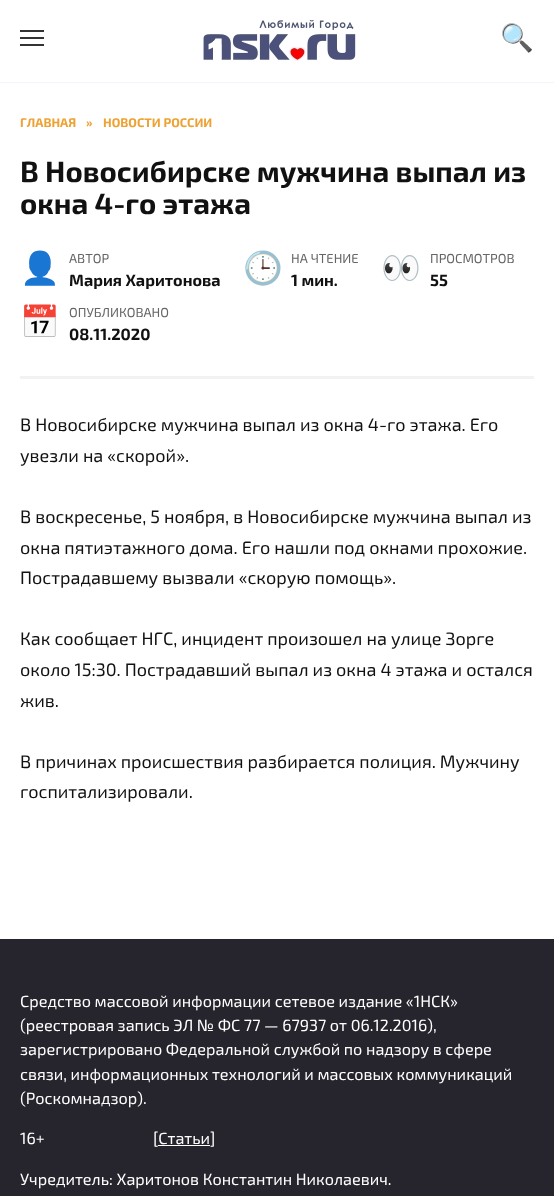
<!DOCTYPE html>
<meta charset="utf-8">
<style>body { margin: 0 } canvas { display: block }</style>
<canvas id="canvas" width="554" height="1196"></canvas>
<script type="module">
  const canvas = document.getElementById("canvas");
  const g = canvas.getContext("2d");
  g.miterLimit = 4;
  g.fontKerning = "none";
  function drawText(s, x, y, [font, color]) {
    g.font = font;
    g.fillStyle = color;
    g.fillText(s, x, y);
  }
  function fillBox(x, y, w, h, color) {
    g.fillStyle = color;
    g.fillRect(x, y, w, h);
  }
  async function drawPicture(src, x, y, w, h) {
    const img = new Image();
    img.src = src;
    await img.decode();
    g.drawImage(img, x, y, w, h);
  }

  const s1 = ["27px Noto Color Emoji", "#111111"];
  const s2 = ["bold 12.5px 'Exo 2'", "#EDA233"];
  const s3 = ["bold 29.25px 'Exo 2'", "#111111"];
  const s4 = ["32px Noto Color Emoji", "#E88B00"];
  const s5 = ["13px 'Exo 2'", "#666666"];
  const s6 = ["bold 16.2px 'Exo 2'", "#111111"];
  const s7 = ["18px 'Exo 2'", "#111111"];
  const s8 = ["16.2px 'Exo 2'", "#FFFFFF"];

  fillBox(0, 0, 554, 1196, "#FFFFFF");
  fillBox(0, 82, 554, 1, "#F2F5F9");
  fillBox(20, 30, 24, 2, "#333333");
  fillBox(20, 37, 24, 2, "#333333");
  fillBox(20, 44, 24, 2, "#333333");
  await drawPicture("pic1.png", 203, 20, 153, 41);
  drawText("🔍", 500, 47, s1);
  drawText("ГЛАВНАЯ", 20, 127, s2);
  drawText("»", 86, 127, s2);
  drawText("НОВОСТИ РОССИИ", 103, 127, s2);
  drawText("В Новосибирске мужчина выпал из", 20, 182, s3);
  drawText("окна 4-го этажа", 20, 214, s3);
  fillBox(20, 376, 514, 3, "#F2F2F2");
  drawText("👤", 20, 279, s4);
  drawText("АВТОР", 69, 263, s5);
  drawText("Мария Харитонова", 69, 286, s6);
  drawText("🕒", 243, 279, s4);
  drawText("НА ЧТЕНИЕ", 291, 263, s5);
  drawText("1 мин.", 291, 286, s6);
  drawText("👀", 381, 279, s4);
  drawText("ПРОСМОТРОВ", 430, 263, s5);
  drawText("55", 430, 286, s6);
  drawText("📅", 20, 333, s4);
  drawText("ОПУБЛИКОВАНО", 69, 317, s5);
  drawText("08.11.2020", 69, 340, s6);
  drawText("В Новосибирске мужчина выпал из окна 4-го этажа. Его", 20, 431, s7);
  drawText("увезли на «скорой».", 20, 462, s7);
  drawText("В воскресенье, 5 ноября, в Новосибирске мужчина выпал из", 20, 523, s7);
  drawText("окна пятиэтажного дома. Его нашли под окнами прохожие.", 20, 554, s7);
  drawText("Пострадавшему вызвали «скорую помощь».", 20, 584, s7);
  drawText("Как сообщает НГС, инцидент произошел на улице Зорге", 20, 645, s7);
  drawText("около 15:30. Пострадавший выпал из окна 4 этажа и остался", 20, 676, s7);
  drawText("жив.", 20, 707, s7);
  drawText("В причинах происшествия разбирается полиция. Мужчину", 20, 768, s7);
  drawText("госпитализировали.", 20, 798, s7);
  fillBox(0, 939, 554, 257, "#26252D");
  drawText("Средство массовой информации сетевое издание «1НСК»", 20, 1007, s8);
  drawText("(реестровая запись ЭЛ № ФС 77 — 67937 от 06.12.2016),", 20, 1031, s8);
  drawText("зарегистрировано Федеральной службой по надзору в сфере", 20, 1055, s8);
  drawText("связи, информационных технологий и массовых коммуникаций", 20, 1080, s8);
  drawText("(Роскомнадзор).", 20, 1104, s8);
  drawText("16+                              [Статьи]", 20, 1144, s8);
  fillBox(158, 1145, 52, 1, "#FFFFFF");
  drawText("Учредитель: Харитонов Константин Николаевич.", 20, 1185, s8);
</script>
